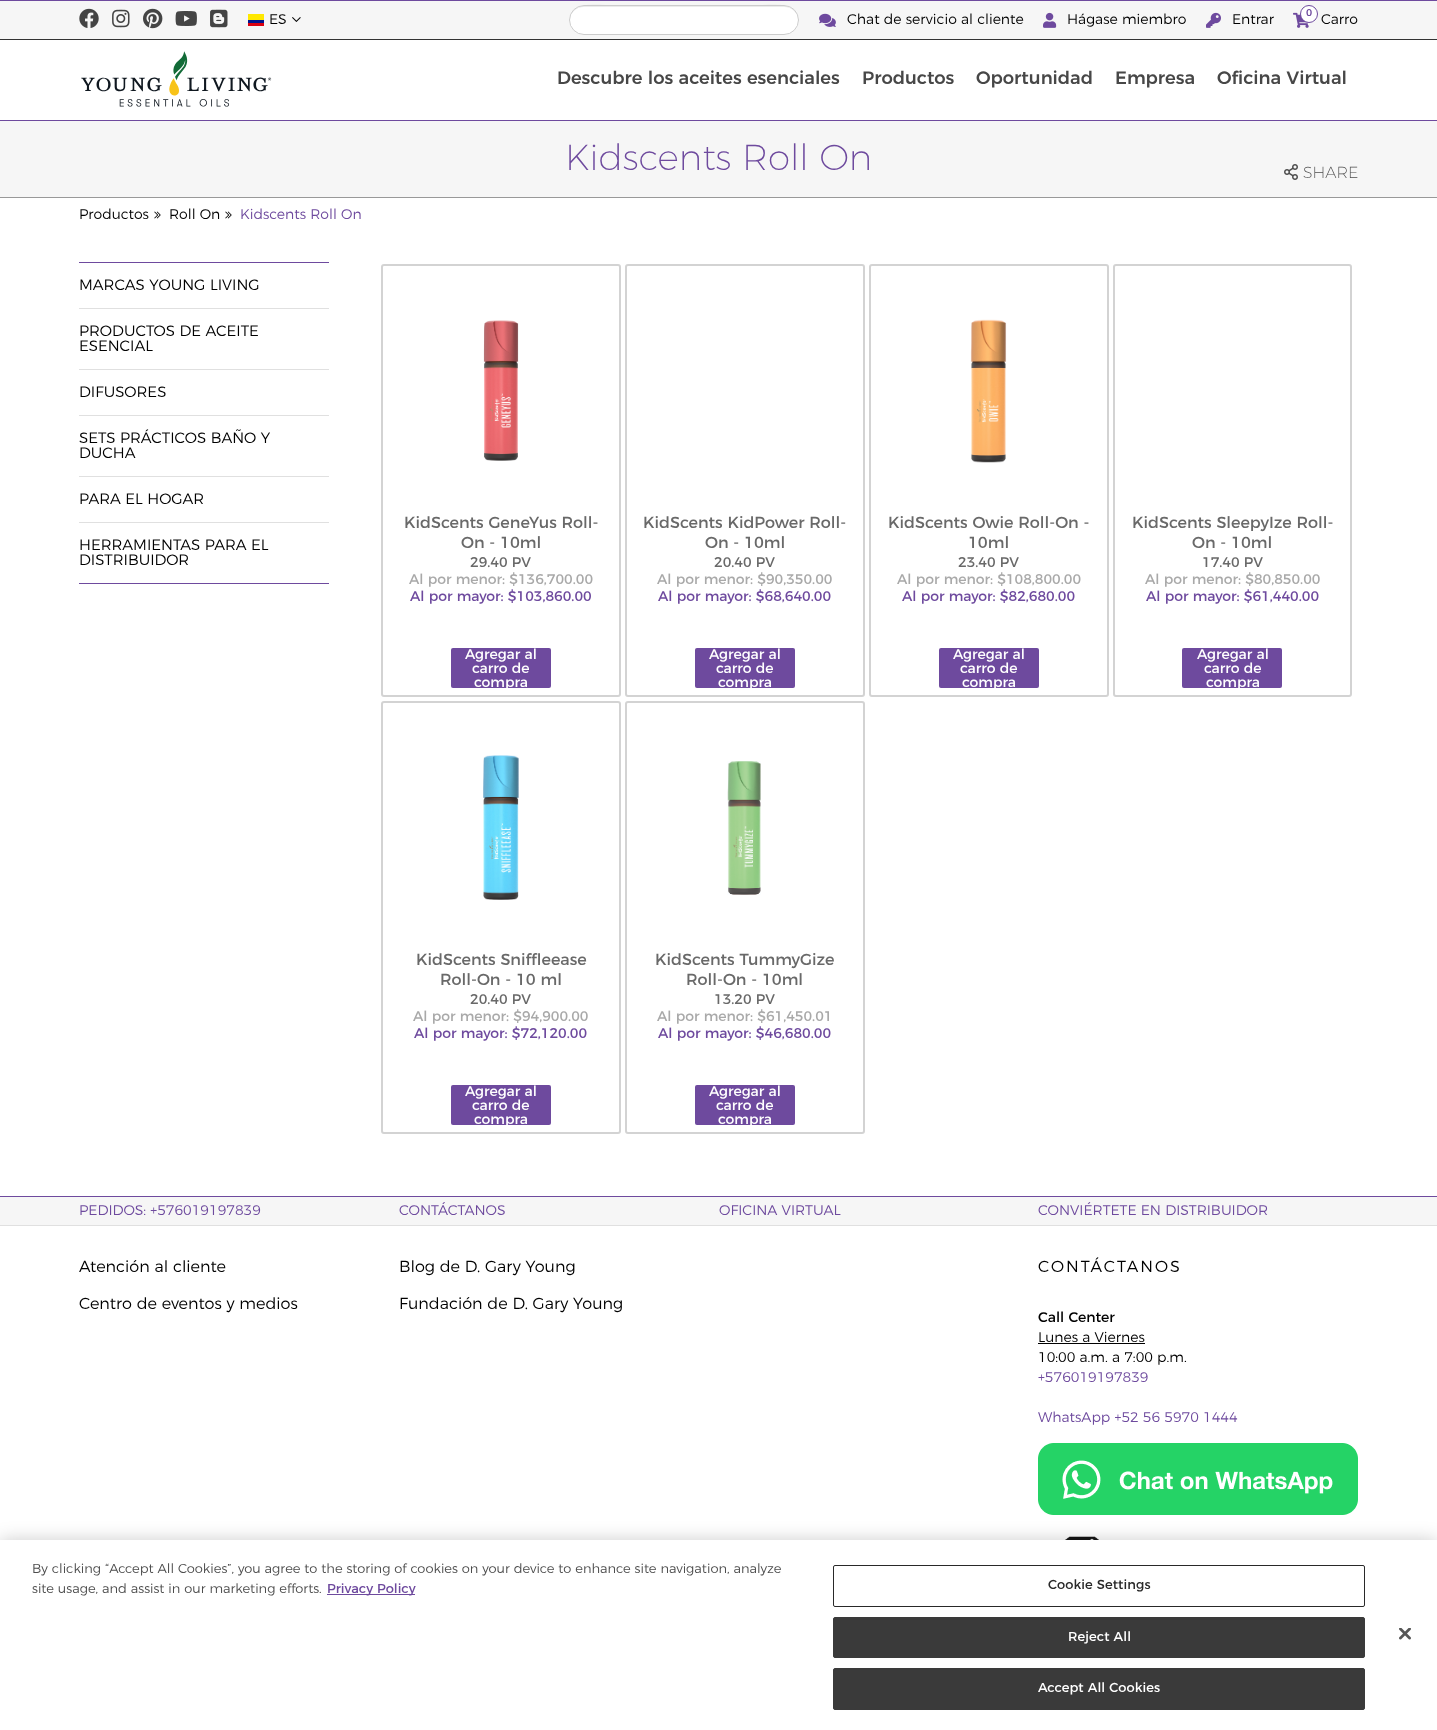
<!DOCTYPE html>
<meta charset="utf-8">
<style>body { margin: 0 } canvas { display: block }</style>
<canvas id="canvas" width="1437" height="1730"></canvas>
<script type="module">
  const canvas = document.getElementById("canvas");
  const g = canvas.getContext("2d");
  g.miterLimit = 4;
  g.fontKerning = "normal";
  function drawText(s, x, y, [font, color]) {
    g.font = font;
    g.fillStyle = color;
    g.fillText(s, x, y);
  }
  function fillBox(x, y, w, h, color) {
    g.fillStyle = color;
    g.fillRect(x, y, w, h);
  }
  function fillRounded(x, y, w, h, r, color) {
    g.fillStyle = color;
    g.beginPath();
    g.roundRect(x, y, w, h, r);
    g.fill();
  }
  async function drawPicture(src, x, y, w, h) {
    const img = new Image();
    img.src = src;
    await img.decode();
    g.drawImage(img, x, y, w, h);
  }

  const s1 = ["300 14px Montserrat", "#000000"];
  const s2 = ["500 10px Montserrat", "#6E4A9E"];
  const s3 = ["500 18px Montserrat", "#474747"];
  const s4 = ["200 36px Montserrat", "#6E4A9E"];
  const s5 = ["200 16px Montserrat", "#4D4D4D"];
  const s6 = ["300 14px Montserrat", "#6E4A9E"];
  const s7 = ["300 15px Montserrat", "#000000"];
  const s8 = ["16px Montserrat", "#696969"];
  const s9 = ["14px Montserrat", "#696969"];
  const s10 = ["14px Montserrat", "#A9A9A9"];
  const s11 = ["14px Montserrat", "#6E4A9E"];
  const s12 = ["14px Montserrat", "#FFFFFF"];
  const s13 = ["300 16px Montserrat", "#000000"];
  const s14 = ["14px Montserrat", "#000000"];
  const s15 = ["300 13px Montserrat", "#4D4D4D"];
  const s16 = ["13px Montserrat", "#6E4A9E"];
  const s17 = ["13px Montserrat", "#292929"];
  const s18 = ["13px Montserrat", "#FFFFFF"];

  fillBox(0, 0, 1437, 1730, "#FFFFFF");
  fillBox(0, 1, 1437, 38, "#F6F6F6");
  fillBox(0, 0, 1437, 1, "#6E4A9E");
  fillBox(0, 39, 1437, 1, "#333333");
  await drawPicture("pic1.png", 79, 8, 20, 20);
  await drawPicture("pic2.png", 112, 9, 18, 19);
  await drawPicture("pic3.png", 143, 8, 20, 21);
  await drawPicture("pic4.png", 175, 11, 22, 15);
  await drawPicture("pic5.png", 210, 9, 18, 19);
  fillBox(248, 14, 16, 6, "#FFE800");
  fillBox(248, 20, 16, 3, "#00148E");
  fillBox(248, 23, 16, 3, "#DA0010");
  drawText("ES", 269, 24, s1);
  await drawPicture("pic6.png", 292, 17, 9, 5);
  fillRounded(569, 5, 230, 30, 15, "#FFFFFF");
  g.fillStyle = "#EBEBEB";
  g.beginPath();
  g.moveTo(584, 7);
  g.lineTo(784, 7);
  g.bezierCurveTo(792, 7, 798, 13, 798, 20);
  g.bezierCurveTo(799, -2, 759, 6, 751, 6);
  g.lineTo(617, 6);
  g.bezierCurveTo(609, 6, 569, -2, 570, 20);
  g.bezierCurveTo(570, 13, 576, 7, 584, 7);
  g.closePath();
  g.fill();
  g.beginPath();
  g.roundRect(569.5, 5.5, 229, 29, 14.5);
  g.strokeStyle = "#CCCCCC";
  g.stroke();
  await drawPicture("pic7.png", 819, 13, 17, 14);
  drawText("Chat de servicio al cliente", 847, 24, s1);
  await drawPicture("pic8.png", 1043, 12, 14, 16);
  drawText("Hágase miembro", 1067, 24, s1);
  await drawPicture("pic9.png", 1206, 12, 15, 16);
  drawText("Entrar", 1232, 24, s1);
  await drawPicture("pic10.png", 1293, 12, 16, 16);
  g.fillStyle = "#FFFFFF";
  g.beginPath();
  g.arc(1309, 14, 8.5, 0, Math.PI * 2);
  g.fill();
  g.strokeStyle = "#6E4A9E";
  g.stroke();
  drawText("0", 1306, 16, s2);
  drawText("Carro", 1321, 24, s1);
  await drawPicture("pic11.png", 81, 51, 191, 56);
  drawText("Descubre los aceites esenciales", 557, 84, s3);
  drawText("Productos", 862, 84, s3);
  drawText("Oportunidad", 976, 84, s3);
  drawText("Empresa", 1115, 84, s3);
  drawText("Oficina Virtual", 1217, 84, s3);
  fillBox(0, 121, 1437, 76, "#F6F6F6");
  fillBox(0, 120, 1437, 1, "#6E4A9E");
  fillBox(0, 197, 1437, 1, "#999999");
  drawText("Kidscents Roll On", 565, 170, s4);
  await drawPicture("pic12.png", 1284, 164, 14, 16);
  drawText("SHARE", 1303, 178, s5);
  drawText("Productos", 79, 219, s1);
  await drawPicture("pic13.png", 154, 211, 7, 8);
  drawText("Roll On", 169, 219, s1);
  await drawPicture("pic13.png", 225, 211, 7, 8);
  drawText("Kidscents Roll On", 240, 219, s6);
  fillBox(79, 262, 250, 1, "#6E4A9E");
  fillBox(79, 583, 250, 1, "#6E4A9E");
  fillBox(79, 308, 250, 1, "#E0E0E0");
  drawText("MARCAS YOUNG LIVING", 79, 290, s7);
  fillBox(79, 369, 250, 1, "#E0E0E0");
  drawText("PRODUCTOS DE ACEITE", 79, 336, s7);
  drawText("ESENCIAL", 79, 351, s7);
  fillBox(79, 415, 250, 1, "#E0E0E0");
  drawText("DIFUSORES", 79, 397, s7);
  fillBox(79, 476, 250, 1, "#E0E0E0");
  drawText("SETS PRÁCTICOS BAÑO Y", 79, 443, s7);
  drawText("DUCHA", 79, 458, s7);
  fillBox(79, 522, 250, 1, "#E0E0E0");
  drawText("PARA EL HOGAR", 79, 504, s7);
  drawText("HERRAMIENTAS PARA EL", 79, 550, s7);
  drawText("DISTRIBUIDOR", 79, 565, s7);
  g.beginPath();
  g.roundRect(382, 265, 238, 431, 2);
  g.strokeStyle = "#D3D3D3";
  g.lineWidth = 2;
  g.stroke();
  await drawPicture("pic14.png", 483, 320, 36, 141);
  drawText("KidScents GeneYus Roll-", 404, 528, s8);
  drawText("On - 10ml", 461, 548, s8);
  drawText("29.40 PV", 470, 567, s9);
  drawText("Al por menor: $136,700.00", 409, 584, s10);
  drawText("Al por mayor: $103,860.00", 410, 601, s11);
  fillRounded(451, 648, 100, 40, 2, "#6E4A9E");
  drawText("Agregar al", 465, 659, s12);
  drawText("carro de", 472, 673, s12);
  drawText("compra", 474, 687, s12);
  g.beginPath();
  g.roundRect(626, 265, 238, 431, 2);
  g.stroke();
  drawText("KidScents KidPower Roll-", 643, 528, s8);
  drawText("On - 10ml", 705, 548, s8);
  drawText("20.40 PV", 714, 567, s9);
  drawText("Al por menor: $90,350.00", 657, 584, s10);
  drawText("Al por mayor: $68,640.00", 658, 601, s11);
  fillRounded(695, 648, 100, 40, 2, "#6E4A9E");
  drawText("Agregar al", 709, 659, s12);
  drawText("carro de", 716, 673, s12);
  drawText("compra", 718, 687, s12);
  g.beginPath();
  g.roundRect(870, 265, 238, 431, 2);
  g.stroke();
  await drawPicture("pic15.png", 970, 319, 37, 144);
  drawText("KidScents Owie Roll-On -", 888, 528, s8);
  drawText("10ml", 968, 548, s8);
  drawText("23.40 PV", 958, 567, s9);
  drawText("Al por menor: $108,800.00", 897, 584, s10);
  drawText("Al por mayor: $82,680.00", 902, 601, s11);
  fillRounded(939, 648, 100, 40, 2, "#6E4A9E");
  drawText("Agregar al", 953, 659, s12);
  drawText("carro de", 960, 673, s12);
  drawText("compra", 962, 687, s12);
  g.beginPath();
  g.roundRect(1114, 265, 237, 431, 2);
  g.stroke();
  drawText("KidScents SleepyIze Roll-", 1132, 528, s8);
  drawText("On - 10ml", 1192, 548, s8);
  drawText("17.40 PV", 1202, 567, s9);
  drawText("Al por menor: $80,850.00", 1145, 584, s10);
  drawText("Al por mayor: $61,440.00", 1146, 601, s11);
  fillRounded(1182, 648, 100, 40, 2, "#6E4A9E");
  drawText("Agregar al", 1197, 659, s12);
  drawText("carro de", 1204, 673, s12);
  drawText("compra", 1206, 687, s12);
  g.beginPath();
  g.roundRect(382, 702, 238, 431, 2);
  g.stroke();
  await drawPicture("pic16.png", 483, 755, 36, 145);
  drawText("KidScents Sniffleease", 416, 965, s8);
  drawText("Roll-On - 10 ml", 440, 985, s8);
  drawText("20.40 PV", 470, 1004, s9);
  drawText("Al por menor: $94,900.00", 413, 1021, s10);
  drawText("Al por mayor: $72,120.00", 414, 1038, s11);
  fillRounded(451, 1085, 100, 40, 2, "#6E4A9E");
  drawText("Agregar al", 465, 1096, s12);
  drawText("carro de", 472, 1110, s12);
  drawText("compra", 474, 1124, s12);
  g.beginPath();
  g.roundRect(626, 702, 238, 431, 2);
  g.stroke();
  await drawPicture("pic17.png", 727, 761, 34, 134);
  drawText("KidScents TummyGize", 655, 965, s8);
  drawText("Roll-On - 10ml", 686, 985, s8);
  drawText("13.20 PV", 714, 1004, s9);
  drawText("Al por menor: $61,450.01", 657, 1021, s10);
  drawText("Al por mayor: $46,680.00", 658, 1038, s11);
  fillRounded(695, 1085, 100, 40, 2, "#6E4A9E");
  drawText("Agregar al", 709, 1096, s12);
  drawText("carro de", 716, 1110, s12);
  drawText("compra", 718, 1124, s12);
  fillBox(0, 1196, 1437, 1, "#6E4A9E");
  fillBox(0, 1197, 1437, 28, "#F6F6F6");
  fillBox(0, 1225, 1437, 1, "#E0E0E0");
  drawText("PEDIDOS: +576019197839", 79, 1215, s6);
  drawText("CONTÁCTANOS", 399, 1215, s6);
  drawText("OFICINA VIRTUAL", 719, 1215, s6);
  drawText("CONVIÉRTETE EN DISTRIBUIDOR", 1038, 1215, s6);
  drawText("Atención al cliente", 79, 1272, s13);
  drawText("Centro de eventos y medios", 79, 1309, s13);
  drawText("Blog de D. Gary Young", 399, 1272, s13);
  drawText("Fundación de D. Gary Young", 399, 1309, s13);
  g.letterSpacing = "2px";
  drawText("CONTÁCTANOS", 1038, 1272, s13);
  g.letterSpacing = "0px";
  drawText("Call Center", 1038, 1322, s14);
  drawText("Lunes a Viernes", 1038, 1342, s1);
  fillBox(1038, 1343, 107, 1, "#000000");
  drawText("10:00 a.m. a 7:00 p.m.", 1038, 1362, s1);
  drawText("+576019197839", 1038, 1382, s6);
  drawText("WhatsApp +52 56 5970 1444", 1038, 1422, s6);
  await drawPicture("pic18.png", 1038, 1443, 320, 72);
  await drawPicture("pic19.png", 1065, 1536, 34, 4);
  g.fillStyle = "rgba(0, 0, 0, 0.2)";
  g.filter = "blur(9px)";
  g.beginPath();
  g.rect(0, 1540, 1437, 190);
  g.fill();
  g.filter = "none";
  fillBox(0, 1540, 1437, 190, "#FFFFFF");
  drawText("By clicking “Accept All Cookies”, you agree to the storing of cookies on your device to enhance site navigation, analyze", 32, 1573, s15);
  drawText("site usage, and assist in our marketing efforts.", 32, 1593, s15);
  fillBox(327, 1594, 88, 1, "#6E4A9E");
  drawText("Privacy Policy", 327, 1593, s16);
  g.beginPath();
  g.roundRect(833.5, 1565.5, 531, 41, 1.5);
  g.strokeStyle = "#292929";
  g.lineWidth = 1;
  g.stroke();
  g.letterSpacing = "0.1px";
  drawText("Cookie Settings", 1048, 1589, s17);
  g.fillStyle = "#3A3A3A";
  g.beginPath();
  g.roundRect(833.5, 1617.5, 531, 40, 1.5);
  g.fill();
  g.strokeStyle = "#3A3A3A";
  g.stroke();
  drawText("Reject All", 1068, 1641, s18);
  g.fillStyle = "#3A3A3A";
  g.beginPath();
  g.roundRect(833.5, 1668.5, 531, 41, 1.5);
  g.fill();
  g.stroke();
  drawText("Accept All Cookies", 1038, 1692, s18);
  await drawPicture("pic20.png", 1399, 1628, 12, 12);
</script>
